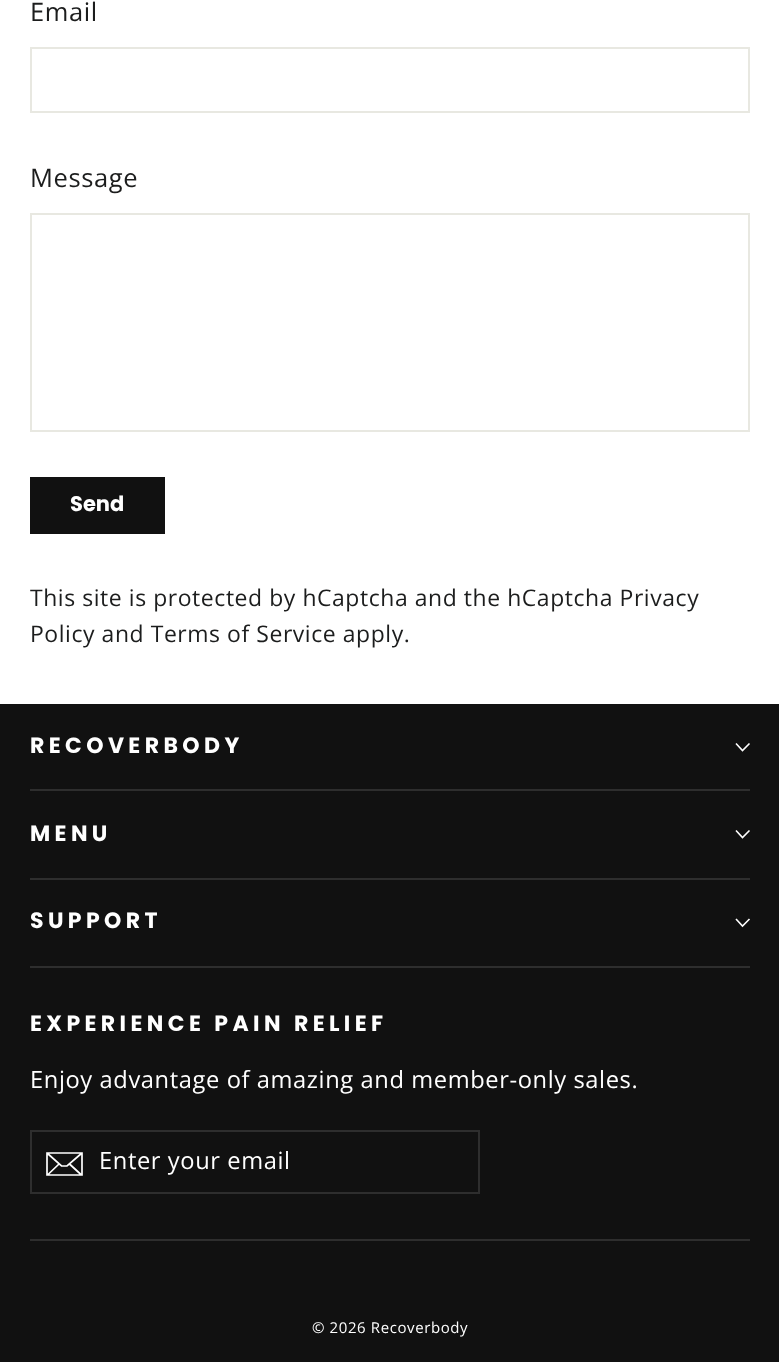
<!DOCTYPE html>
<meta charset="utf-8">
<style>body { margin: 0 } canvas { display: block }</style>
<canvas id="canvas" width="779" height="1362"></canvas>
<script type="module">
  const canvas = document.getElementById("canvas");
  const g = canvas.getContext("2d");
  g.miterLimit = 4;
  g.fontKerning = "normal";
  function drawText(s, x, y, [font, color]) {
    g.font = font;
    g.fillStyle = color;
    g.fillText(s, x, y);
  }
  function fillBox(x, y, w, h, color) {
    g.fillStyle = color;
    g.fillRect(x, y, w, h);
  }

  const s1 = ["25.5px Open Sans", "#1C1D1D"];
  const s2 = ["bold 21px Poppins", "#FFFFFF"];
  const s3 = ["22.95px Open Sans", "#1C1D1D"];
  const s4 = ["bold 22px Poppins", "#FFFFFF"];
  const s5 = ["23.7px Open Sans", "#FFFFFF"];
  const s6 = ["15px Open Sans", "#FFFFFF"];

  fillBox(0, 0, 779, 1362, "#FFFFFF");
  g.letterSpacing = "0.6px";
  drawText("Email", 30, 21, s1);
  g.strokeStyle = "#E8E8E1";
  g.lineWidth = 2;
  g.strokeRect(31, 48, 718, 64);
  drawText("Message", 30, 187, s1);
  g.strokeRect(31, 214, 718, 217);
  fillBox(30, 477, 135, 57, "#111111");
  g.letterSpacing = "0px";
  drawText("Send", 70, 511, s2);
  g.letterSpacing = "0.57px";
  drawText("This site is protected by hCaptcha and the hCaptcha Privacy", 30, 606, s3);
  drawText("Policy and Terms of Service apply.", 30, 642, s3);
  fillBox(0, 704, 779, 658, "#111111");
  g.letterSpacing = "4.4px";
  drawText("RECOVERBODY", 30, 753, s4);
  g.beginPath();
  g.moveTo(736, 743.5);
  g.lineTo(742.5, 750.5);
  g.lineTo(749.5, 743.5);
  g.strokeStyle = "#FFFFFF";
  g.lineWidth = 1.6;
  g.stroke();
  fillBox(30, 789, 720, 2, "#2E2E2E");
  drawText("MENU", 30, 841, s4);
  g.beginPath();
  g.moveTo(736, 830.5);
  g.lineTo(742.5, 837.5);
  g.lineTo(749.5, 830.5);
  g.stroke();
  fillBox(30, 878, 720, 2, "#2E2E2E");
  drawText("SUPPORT", 30, 928, s4);
  g.beginPath();
  g.moveTo(736, 919);
  g.lineTo(742.5, 926);
  g.lineTo(749.5, 919);
  g.stroke();
  fillBox(30, 966, 720, 2, "#2E2E2E");
  drawText("EXPERIENCE PAIN RELIEF", 30, 1031, s4);
  g.letterSpacing = "0.6px";
  drawText("Enjoy advantage of amazing and member-only sales.", 30, 1088, s5);
  g.strokeStyle = "#2E2E2E";
  g.lineWidth = 2;
  g.strokeRect(31, 1131, 448, 62);
  g.beginPath();
  g.moveTo(82, 1175);
  g.lineTo(47, 1175);
  g.lineTo(47, 1153);
  g.lineTo(82, 1153);
  g.closePath();
  g.moveTo(47, 1153);
  g.lineTo(61.5, 1166);
  g.lineTo(67, 1166);
  g.lineTo(82, 1153);
  g.moveTo(59, 1164);
  g.lineTo(47.5, 1175);
  g.moveTo(81.5, 1175);
  g.lineTo(69.5, 1164);
  g.strokeStyle = "#FFFFFF";
  g.lineWidth = 1.7;
  g.stroke();
  drawText("Enter your email", 99, 1169, s5);
  fillBox(30, 1239, 720, 2, "#2E2E2E");
  drawText("© 2026 Recoverbody", 312, 1333, s6);
</script>
